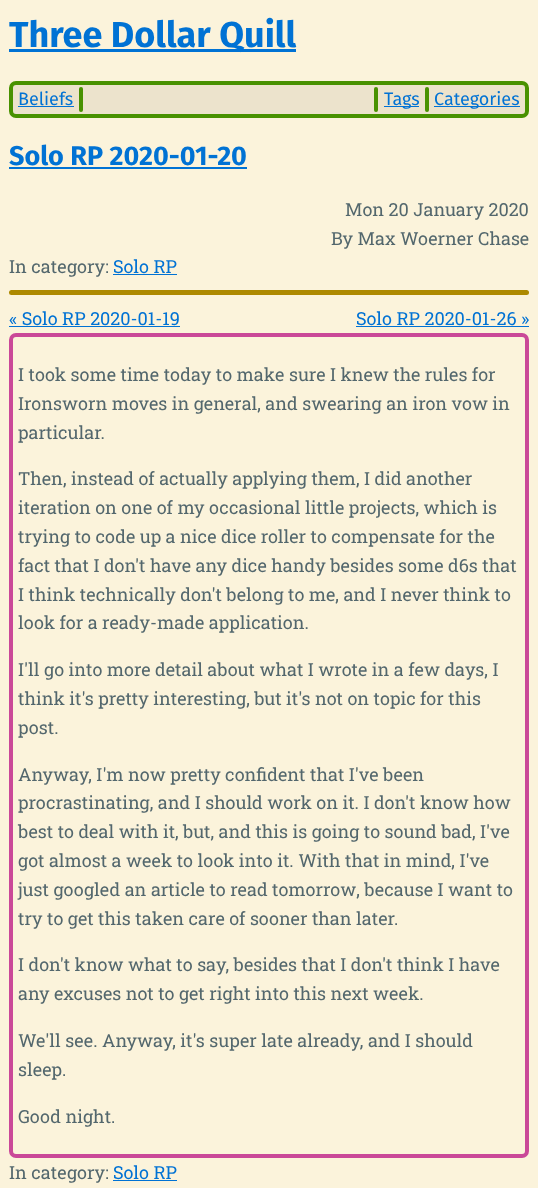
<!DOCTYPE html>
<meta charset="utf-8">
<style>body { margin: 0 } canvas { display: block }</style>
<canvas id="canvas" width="538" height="1188"></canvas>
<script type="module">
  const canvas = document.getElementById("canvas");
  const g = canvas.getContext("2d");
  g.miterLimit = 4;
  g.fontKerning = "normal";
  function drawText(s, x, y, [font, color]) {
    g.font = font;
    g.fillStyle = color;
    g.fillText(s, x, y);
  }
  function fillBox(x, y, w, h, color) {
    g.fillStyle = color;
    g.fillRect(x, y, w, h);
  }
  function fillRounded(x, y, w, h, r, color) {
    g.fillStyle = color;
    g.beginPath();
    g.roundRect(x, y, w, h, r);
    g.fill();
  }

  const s1 = ["bold 36px Fira Sans", "#0072D4"];
  const s2 = ["18px Fira Sans", "#0072D4"];
  const s3 = ["bold 27px Fira Sans", "#0072D4"];
  const s4 = ["18px Roboto Slab", "#53676D"];
  const s5 = ["18px Roboto Slab", "#0072D4"];

  fillBox(0, 0, 538, 1188, "#FBF3DB");
  fillBox(9, 49, 287, 3, "#0072D4");
  drawText("Three Dollar Quill", 9, 47, s1);
  g.fillStyle = "#ECE3CC";
  g.beginPath();
  g.roundRect(11, 83, 516, 33, 5);
  g.fill();
  g.strokeStyle = "#489100";
  g.lineWidth = 4;
  g.stroke();
  drawText("Beliefs", 18, 105, s2);
  fillBox(18, 106, 56, 1, "#0072D4");
  g.fillStyle = "#489100";
  g.beginPath();
  g.roundRect(79, 87, 2, 25, [2, 0, 0, 2]);
  g.fill();
  g.beginPath();
  g.roundRect(81, 87, 2, 25, [0, 2, 2, 0]);
  g.fill();
  g.beginPath();
  g.roundRect(374, 87, 2, 25, [2, 0, 0, 2]);
  g.fill();
  g.beginPath();
  g.roundRect(376, 87, 2, 25, [0, 2, 2, 0]);
  g.fill();
  fillBox(384, 106, 35, 1, "#0072D4");
  drawText("Tags", 384, 105, s2);
  g.fillStyle = "#489100";
  g.beginPath();
  g.roundRect(425, 87, 2, 25, [2, 0, 0, 2]);
  g.fill();
  g.beginPath();
  g.roundRect(427, 87, 2, 25, [0, 2, 2, 0]);
  g.fill();
  fillBox(434, 106, 86, 1, "#0072D4");
  drawText("Categories", 434, 105, s2);
  drawText("Solo RP 2020-01-20", 9, 165, s3);
  fillBox(9, 167, 238, 2, "#0072D4");
  drawText("Mon 20 January 2020", 345, 216, s4);
  drawText("By Max Woerner Chase", 331, 245, s4);
  drawText("In category:", 9, 273, s4);
  drawText("Solo RP", 113, 273, s5);
  fillBox(113, 274, 64, 1, "#0072D4");
  fillRounded(9, 290, 520, 5, 2.5, "#AD8900");
  drawText("« Solo RP 2020-01-19", 9, 325, s5);
  fillBox(9, 326, 171, 1, "#0072D4");
  drawText("Solo RP 2020-01-26 »", 356, 325, s5);
  fillBox(356, 326, 173, 1, "#0072D4");
  g.beginPath();
  g.roundRect(11, 335, 516, 821, 5);
  g.strokeStyle = "#CA4898";
  g.stroke();
  drawText("I took some time today to make sure I knew the rules for", 18, 381, s4);
  drawText("Ironsworn moves in general, and swearing an iron vow in", 18, 410, s4);
  drawText("particular.", 18, 439, s4);
  drawText("Then, instead of actually applying them, I did another", 18, 485, s4);
  drawText("iteration on one of my occasional little projects, which is", 18, 514, s4);
  drawText("trying to code up a nice dice roller to compensate for the", 18, 543, s4);
  drawText("fact that I don't have any dice handy besides some d6s that", 18, 572, s4);
  drawText("I think technically don't belong to me, and I never think to", 18, 601, s4);
  drawText("look for a ready-made application.", 18, 629, s4);
  drawText("I'll go into more detail about what I wrote in a few days, I", 18, 676, s4);
  drawText("think it's pretty interesting, but it's not on topic for this", 18, 705, s4);
  drawText("post.", 18, 734, s4);
  drawText("Anyway, I'm now pretty confident that I've been", 18, 781, s4);
  drawText("procrastinating, and I should work on it. I don't know how", 18, 809, s4);
  drawText("best to deal with it, but, and this is going to sound bad, I've", 18, 838, s4);
  drawText("got almost a week to look into it. With that in mind, I've", 18, 867, s4);
  drawText("just googled an article to read tomorrow, because I want to", 18, 896, s4);
  drawText("try to get this taken care of sooner than later.", 18, 925, s4);
  drawText("I don't know what to say, besides that I don't think I have", 18, 971, s4);
  drawText("any excuses not to get right into this next week.", 18, 1000, s4);
  drawText("We'll see. Anyway, it's super late already, and I should", 18, 1047, s4);
  drawText("sleep.", 18, 1076, s4);
  drawText("Good night.", 18, 1123, s4);
  drawText("In category:", 9, 1179, s4);
  drawText("Solo RP", 113, 1179, s5);
  fillBox(113, 1180, 64, 1, "#0072D4");
</script>
